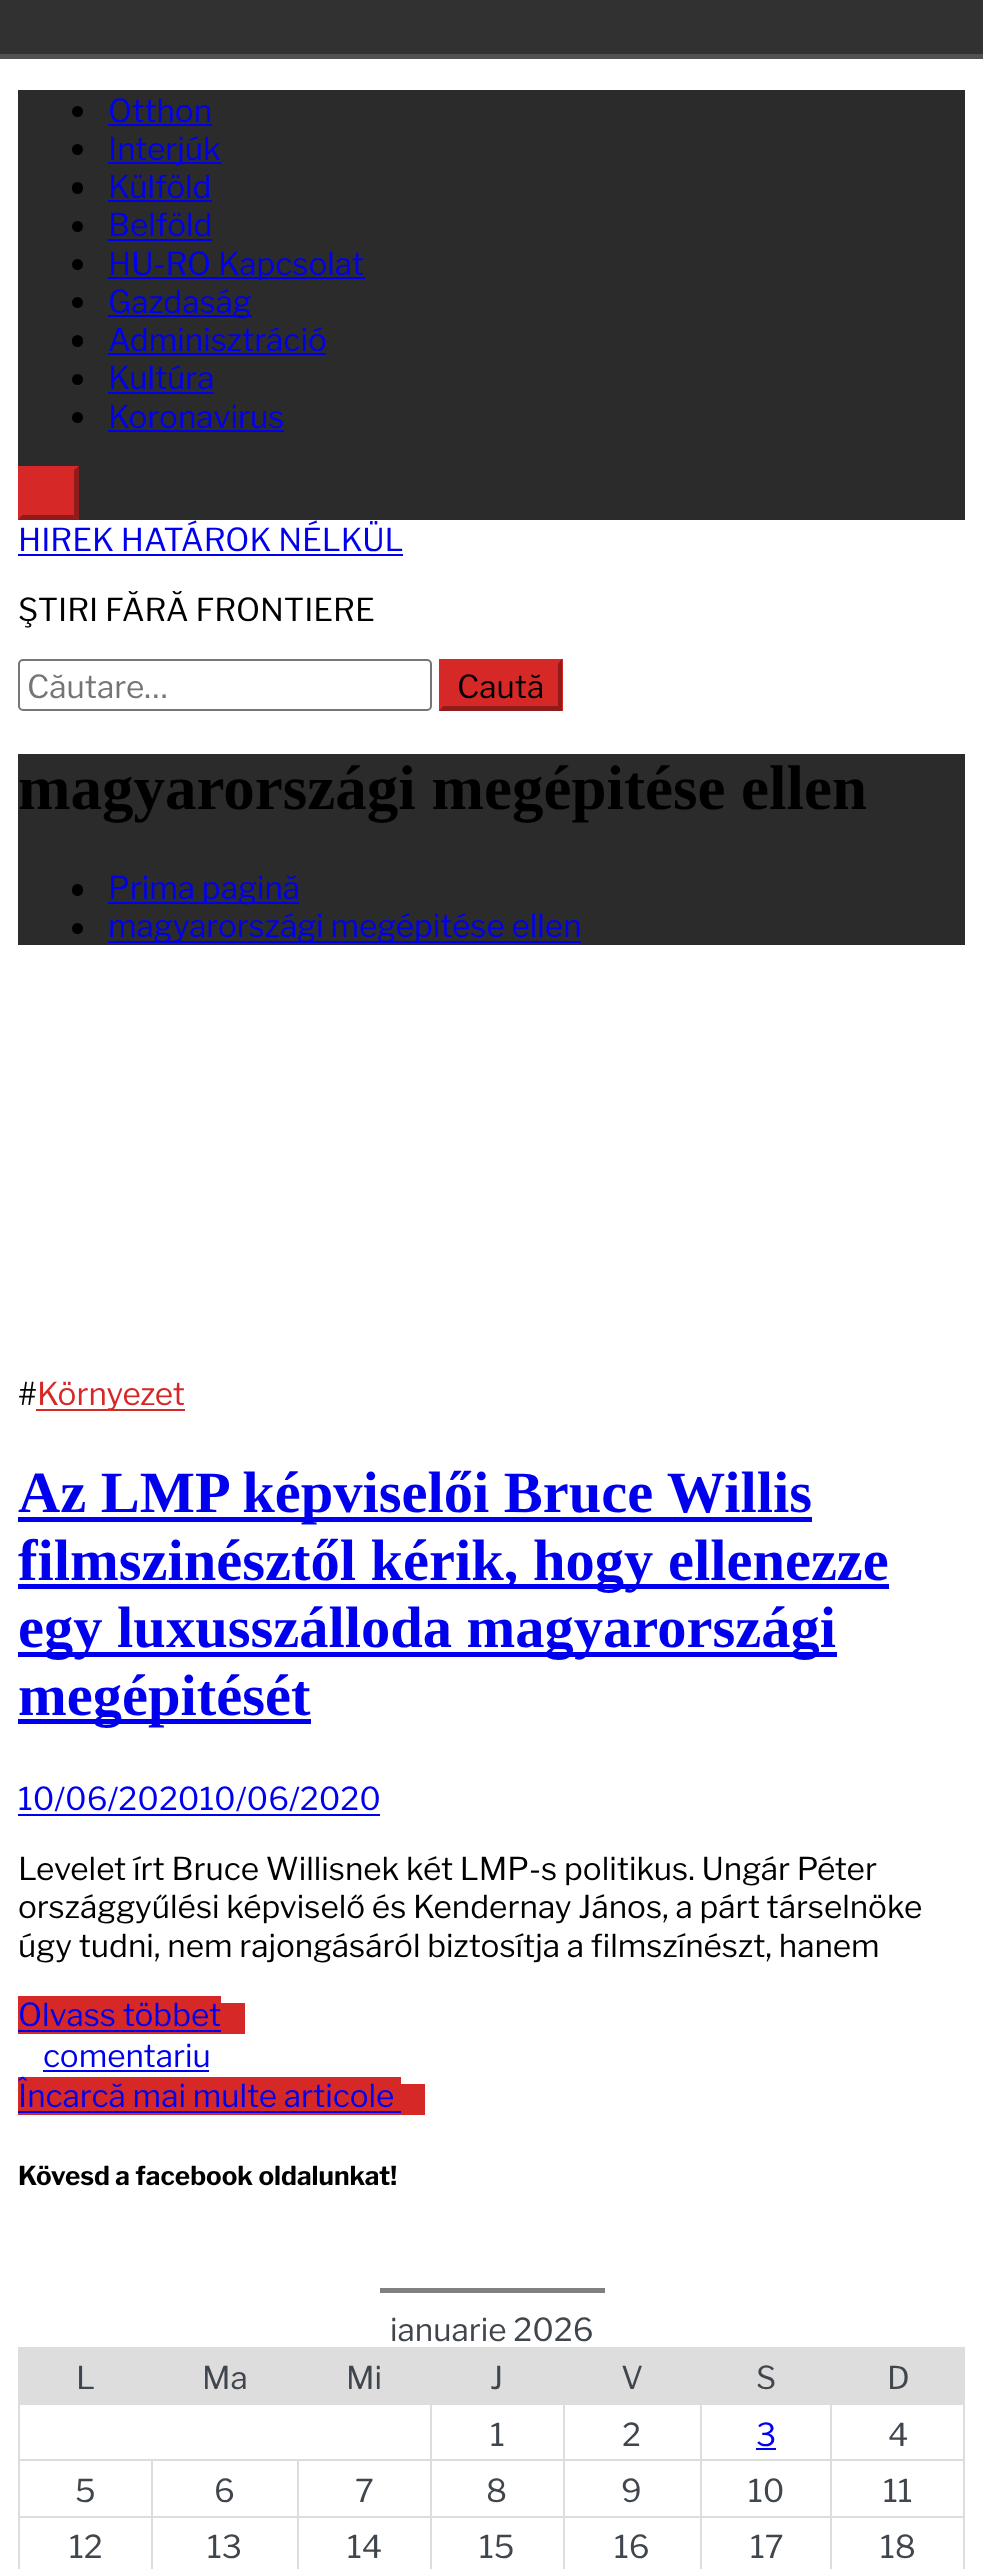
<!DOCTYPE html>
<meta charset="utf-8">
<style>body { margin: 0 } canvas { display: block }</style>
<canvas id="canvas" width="983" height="2569"></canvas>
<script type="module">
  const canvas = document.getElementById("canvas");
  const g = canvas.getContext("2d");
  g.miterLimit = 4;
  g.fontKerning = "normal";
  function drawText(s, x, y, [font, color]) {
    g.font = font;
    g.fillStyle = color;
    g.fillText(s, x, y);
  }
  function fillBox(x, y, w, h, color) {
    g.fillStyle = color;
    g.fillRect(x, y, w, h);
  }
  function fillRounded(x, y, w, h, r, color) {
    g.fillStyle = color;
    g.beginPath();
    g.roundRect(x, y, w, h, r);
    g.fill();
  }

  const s1 = ["31.5px Libre Franklin", "#0000EE"];
  const s2 = ["31.5px Libre Franklin", "#000000"];
  const s3 = ["31.5px Libre Franklin", "#757575"];
  const s4 = ["bold 63px Liberation Serif", "#000000"];
  const s5 = ["31.5px Libre Franklin", "#D72828"];
  const s6 = ["bold 58.5px Liberation Serif", "#0000EE"];
  const s7 = ["bold 26.1px Libre Franklin", "#000000"];
  const s8 = ["31.5px Libre Franklin", "#40464D"];

  fillBox(0, 0, 983, 2569, "#FFFFFF");
  fillBox(0, 0, 983, 54, "#313131");
  fillBox(0, 54, 983, 5, "#515150");
  fillBox(18, 90, 947, 430, "#2B2B2B");
  g.fillStyle = "#000000";
  g.beginPath();
  g.arc(77.5, 111.5, 5.5, 0, Math.PI * 2);
  g.fill();
  drawText("Otthon", 108, 122, s1);
  fillBox(108, 124, 104, 2, "#0000EE");
  g.fillStyle = "#000000";
  g.beginPath();
  g.arc(77.5, 149.5, 5.5, 0, Math.PI * 2);
  g.fill();
  fillBox(108, 162, 113, 2, "#0000EE");
  drawText("Interjúk", 108, 160, s1);
  fillRounded(72, 182, 11, 12, 5.5, "#000000");
  drawText("Külföld", 108, 198, s1);
  fillBox(108, 200, 104, 2, "#0000EE");
  g.fillStyle = "#000000";
  g.beginPath();
  g.arc(77.5, 226.5, 5.5, 0, Math.PI * 2);
  g.fill();
  drawText("Belföld", 108, 236, s1);
  fillBox(108, 239, 104, 2, "#0000EE");
  g.fillStyle = "#000000";
  g.beginPath();
  g.arc(77.5, 264.5, 5.5, 0, Math.PI * 2);
  g.fill();
  fillBox(108, 277, 257, 2, "#0000EE");
  drawText("HU-RO Kapcsolat", 108, 275, s1);
  g.fillStyle = "#000000";
  g.beginPath();
  g.arc(77.5, 302.5, 5.5, 0, Math.PI * 2);
  g.fill();
  fillBox(108, 315, 144, 2, "#0000EE");
  drawText("Gazdaság", 108, 313, s1);
  fillRounded(72, 335, 11, 12, 5.5, "#000000");
  drawText("Adminisztráció", 108, 351, s1);
  fillBox(108, 353, 218, 2, "#0000EE");
  g.fillStyle = "#000000";
  g.beginPath();
  g.arc(77.5, 379.5, 5.5, 0, Math.PI * 2);
  g.fill();
  drawText("Kultúra", 108, 389, s1);
  fillBox(108, 392, 106, 2, "#0000EE");
  g.fillStyle = "#000000";
  g.beginPath();
  g.arc(77.5, 417.5, 5.5, 0, Math.PI * 2);
  g.fill();
  drawText("Koronavirus", 108, 428, s1);
  fillBox(108, 430, 176, 2, "#0000EE");
  fillBox(18, 466, 61, 54, "#D72828");
  g.fillStyle = "#8F1B1B";
  g.beginPath();
  g.moveTo(79, 466);
  g.lineTo(79, 520);
  g.lineTo(74, 515);
  g.lineTo(74, 470);
  g.closePath();
  g.fill();
  g.beginPath();
  g.moveTo(79, 520);
  g.lineTo(18, 520);
  g.lineTo(22, 515);
  g.lineTo(74, 515);
  g.closePath();
  g.fill();
  g.fillStyle = "#D72828";
  g.beginPath();
  g.moveTo(18, 520);
  g.lineTo(18, 466);
  g.lineTo(22, 470);
  g.lineTo(22, 515);
  g.closePath();
  g.fill();
  drawText("HIREK HATÁROK NÉLKÜL", 18, 551, s1);
  fillBox(18, 554, 385, 2, "#0000EE");
  drawText("ŞTIRI FĂRĂ FRONTIERE", 18, 621, s2);
  g.beginPath();
  g.roundRect(19, 660, 412, 50, 4);
  g.strokeStyle = "#767676";
  g.lineWidth = 2;
  g.stroke();
  drawText("Căutare…", 27, 698, s3);
  fillBox(439, 659, 124, 52, "#D72828");
  g.fillStyle = "#8F1B1B";
  g.beginPath();
  g.moveTo(562, 659);
  g.lineTo(562, 711);
  g.lineTo(558, 706);
  g.lineTo(558, 664);
  g.closePath();
  g.fill();
  g.beginPath();
  g.moveTo(562, 711);
  g.lineTo(439, 711);
  g.lineTo(443, 706);
  g.lineTo(558, 706);
  g.closePath();
  g.fill();
  g.fillStyle = "#D72828";
  g.beginPath();
  g.moveTo(439, 711);
  g.lineTo(439, 659);
  g.lineTo(443, 664);
  g.lineTo(443, 706);
  g.closePath();
  g.fill();
  drawText("Caută", 457, 698, s2);
  fillBox(18, 754, 947, 191, "#2B2B2B");
  drawText("magyarországi megépitése ellen", 18, 809, s4);
  fillRounded(72, 884, 11, 12, 5.5, "#000000");
  fillBox(108, 902, 191, 2, "#0000EE");
  drawText("Prima pagină", 108, 899, s1);
  g.fillStyle = "#000000";
  g.beginPath();
  g.arc(77.5, 928.5, 5.5, 0, Math.PI * 2);
  g.fill();
  fillBox(108, 941, 473, 2, "#0000EE");
  drawText("magyarországi megépitése ellen", 108, 937, s1);
  drawText("#", 18, 1405, s2);
  fillBox(36, 1409, 149, 2, "#D72828");
  drawText("Környezet", 37, 1405, s5);
  fillBox(18, 1517, 794, 5, "#0000EE");
  drawText("Az LMP képviselői Bruce Willis", 18, 1512, s6);
  fillBox(18, 1584, 871, 5, "#0000EE");
  drawText("filmszinésztől kérik, hogy ellenezze", 18, 1580, s6);
  fillBox(18, 1652, 819, 5, "#0000EE");
  drawText("egy luxusszálloda magyarországi", 18, 1647, s6);
  fillBox(18, 1719, 293, 5, "#0000EE");
  drawText("megépitését", 18, 1715, s6);
  drawText("10/06/202010/06/2020", 18, 1810, s1);
  fillBox(18, 1814, 362, 2, "#0000EE");
  drawText("Levelet írt Bruce Willisnek két LMP-s politikus. Ungár Péter", 18, 1880, s2);
  drawText("országgyűlési képviselő és Kendernay János, a párt társelnöke", 18, 1918, s2);
  drawText("úgy tudni, nem rajongásáról biztosítja a filmszínészt, hanem", 18, 1957, s2);
  fillBox(18, 1996, 203, 38, "#D72828");
  drawText("Olvass többet", 18, 2026, s1);
  fillBox(221, 2003, 24, 31, "#D72828");
  fillBox(18, 2030, 203, 2, "#0000EE");
  drawText("comentariu", 43, 2067, s1);
  fillBox(43, 2070, 166, 2, "#0000EE");
  fillBox(18, 2077, 383, 38, "#D72828");
  drawText("Încarcă mai multe articole", 18, 2107, s1);
  fillBox(401, 2084, 24, 31, "#D72828");
  fillBox(18, 2111, 383, 2, "#0000EE");
  drawText("Kövesd a facebook oldalunkat!", 18, 2185, s7);
  fillBox(380, 2288, 225, 5, "#808080");
  drawText("ianuarie 2026", 390, 2341, s8);
  fillBox(20, 2349, 412, 54, "#DDDDDD");
  fillBox(18, 2347, 947, 2, "#DDDDDD");
  fillBox(830, 2459, 135, 2, "#DDDDDD");
  fillBox(830, 2516, 135, 2, "#DDDDDD");
  fillBox(830, 2516, 2, 53, "#DDDDDD");
  fillBox(700, 2516, 133, 2, "#DDDDDD");
  fillBox(830, 2459, 2, 59, "#DDDDDD");
  fillBox(700, 2459, 133, 2, "#DDDDDD");
  fillBox(700, 2516, 2, 53, "#DDDDDD");
  fillBox(563, 2516, 139, 2, "#DDDDDD");
  fillBox(700, 2459, 2, 59, "#DDDDDD");
  fillBox(563, 2459, 139, 2, "#DDDDDD");
  fillBox(563, 2516, 2, 53, "#DDDDDD");
  fillBox(430, 2516, 135, 2, "#DDDDDD");
  fillBox(563, 2459, 2, 59, "#DDDDDD");
  fillBox(430, 2459, 135, 2, "#DDDDDD");
  fillBox(430, 2516, 2, 53, "#DDDDDD");
  fillBox(297, 2516, 135, 2, "#DDDDDD");
  fillBox(430, 2459, 2, 59, "#DDDDDD");
  fillBox(297, 2459, 135, 2, "#DDDDDD");
  fillBox(430, 2403, 2, 59, "#DDDDDD");
  fillBox(18, 2403, 414, 2, "#DDDDDD");
  fillBox(297, 2516, 2, 53, "#DDDDDD");
  fillBox(151, 2516, 148, 2, "#DDDDDD");
  fillBox(297, 2459, 2, 59, "#DDDDDD");
  fillBox(151, 2459, 148, 2, "#DDDDDD");
  fillBox(151, 2516, 2, 53, "#DDDDDD");
  fillBox(18, 2516, 135, 2, "#DDDDDD");
  fillBox(151, 2459, 2, 59, "#DDDDDD");
  fillBox(18, 2459, 135, 2, "#DDDDDD");
  fillBox(18, 2516, 2, 53, "#DDDDDD");
  fillBox(18, 2459, 2, 59, "#DDDDDD");
  fillBox(18, 2403, 2, 59, "#DDDDDD");
  fillBox(18, 2347, 2, 58, "#DDDDDD");
  drawText("L", 76, 2389, s8);
  drawText("Ma", 202, 2389, s8);
  drawText("Mi", 346, 2389, s8);
  fillBox(432, 2349, 533, 56, "#DDDDDD");
  drawText("J", 490, 2389, s8);
  drawText("V", 621, 2389, s8);
  drawText("S", 756, 2389, s8);
  drawText("D", 887, 2389, s8);
  drawText("1", 490, 2446, s8);
  fillBox(563, 2403, 2, 59, "#DDDDDD");
  drawText("2", 622, 2446, s8);
  fillBox(700, 2403, 2, 59, "#DDDDDD");
  drawText("3", 756, 2446, s1);
  fillBox(756, 2448, 20, 2, "#0000EE");
  fillBox(830, 2403, 2, 59, "#DDDDDD");
  drawText("4", 888, 2446, s8);
  drawText("5", 75, 2502, s8);
  drawText("6", 214, 2502, s8);
  drawText("7", 355, 2502, s8);
  drawText("8", 486, 2502, s8);
  drawText("9", 621, 2502, s8);
  drawText("10", 748, 2502, s8);
  fillBox(963, 2516, 2, 53, "#DDDDDD");
  fillBox(963, 2403, 2, 115, "#DDDDDD");
  drawText("11", 883, 2502, s8);
  drawText("12", 69, 2558, s8);
  drawText("13", 207, 2558, s8);
  drawText("14", 347, 2558, s8);
  drawText("15", 479, 2558, s8);
  drawText("16", 614, 2558, s8);
  drawText("17", 750, 2558, s8);
  drawText("18", 880, 2558, s8);
</script>
